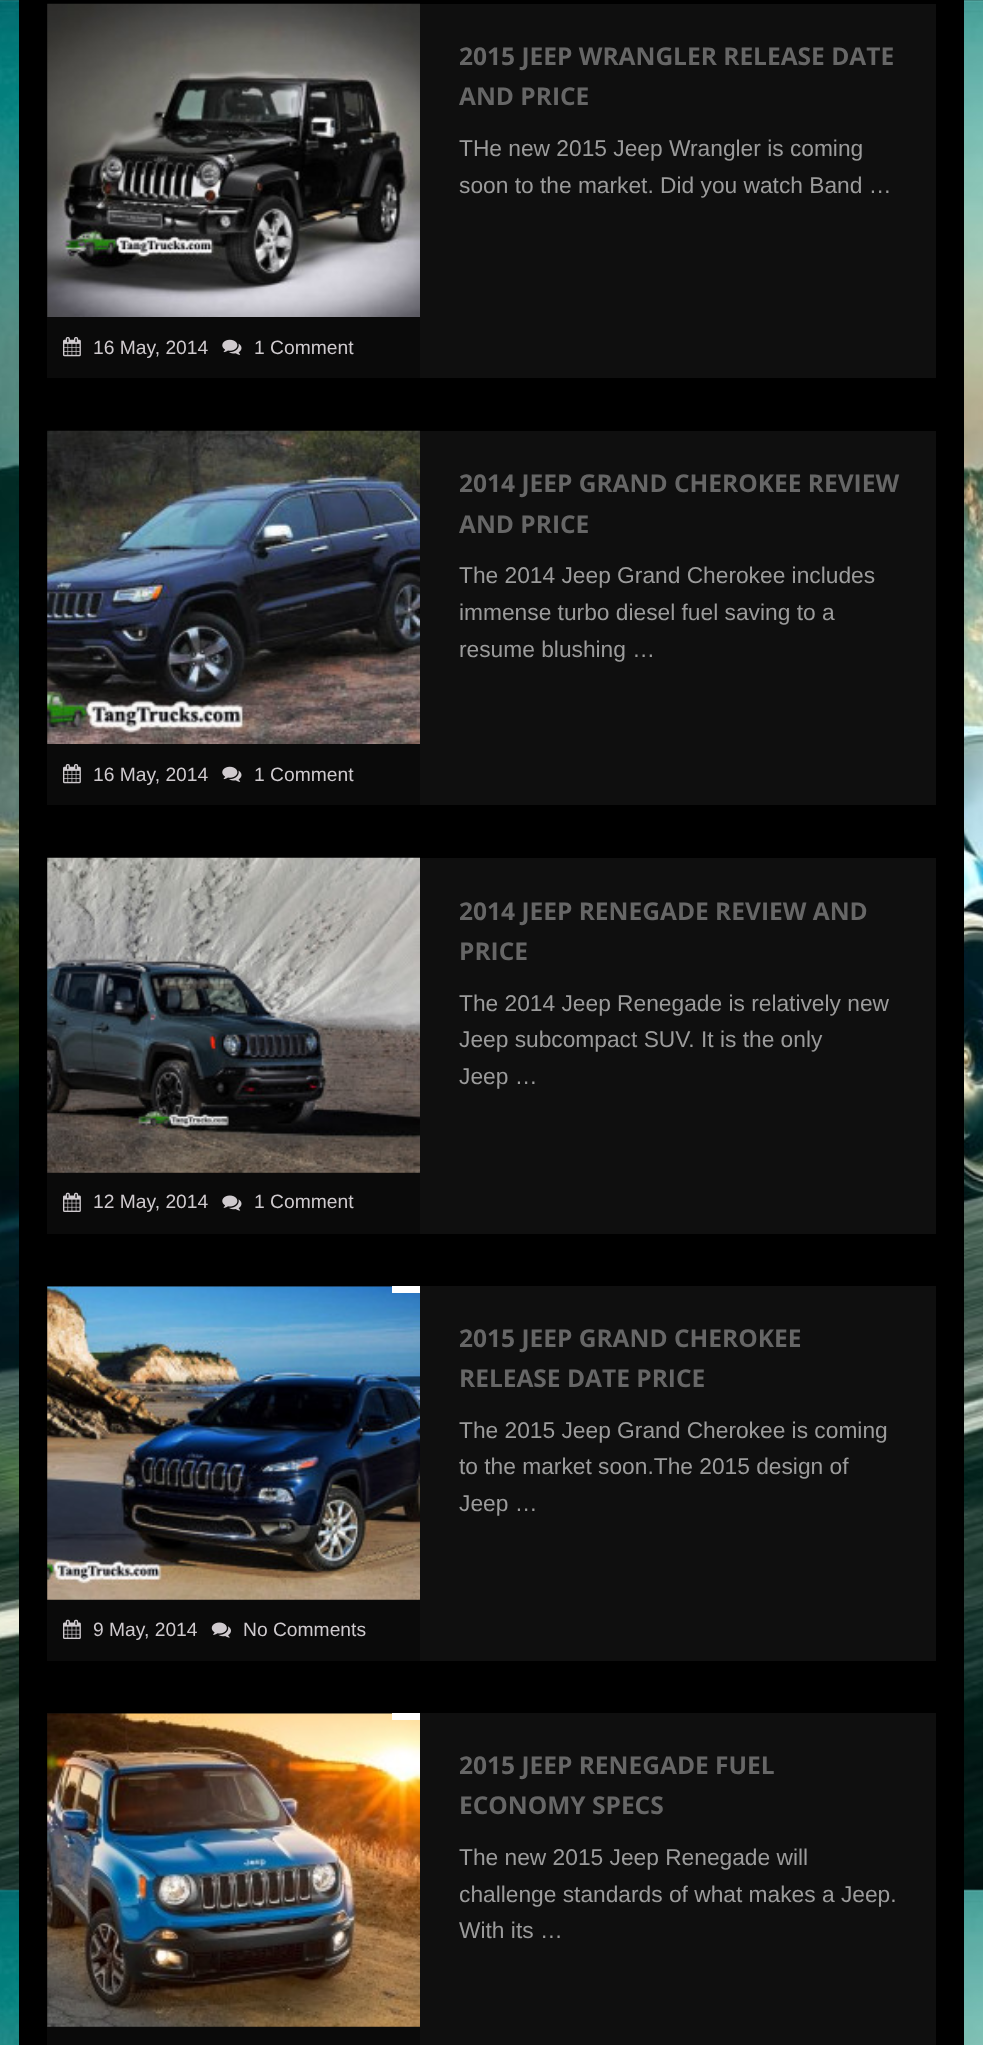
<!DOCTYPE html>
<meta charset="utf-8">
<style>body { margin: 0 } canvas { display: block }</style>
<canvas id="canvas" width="983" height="2045"></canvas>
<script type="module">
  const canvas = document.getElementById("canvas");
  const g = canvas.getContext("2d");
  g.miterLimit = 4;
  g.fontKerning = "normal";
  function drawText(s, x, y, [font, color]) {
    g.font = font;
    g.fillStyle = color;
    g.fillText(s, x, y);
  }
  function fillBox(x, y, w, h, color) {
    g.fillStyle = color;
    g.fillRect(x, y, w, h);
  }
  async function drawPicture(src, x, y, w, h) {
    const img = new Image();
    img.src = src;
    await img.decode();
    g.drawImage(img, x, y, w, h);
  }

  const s1 = ["bold 24.5px Open Sans", "#666666"];
  const s2 = ["22.75px Liberation Sans", "#9B9B9B"];
  const s3 = ["19.25px Liberation Sans", "#CFCACE"];

  fillBox(0, 0, 983, 2045, "#FFFFFF");
  await drawPicture("pic1.png", 0, 0, 983, 2045);
  fillBox(19, 0, 945, 2045, "#000000");
  fillBox(47, 4, 889, 374, "#0F0F0F");
  drawText("2015 JEEP WRANGLER RELEASE DATE", 459, 65, s1);
  drawText("AND PRICE", 459, 105, s1);
  drawText("THe new 2015 Jeep Wrangler is coming", 459, 156, s2);
  drawText("soon to the market. Did you watch Band …", 459, 193, s2);
  await drawPicture("pic2.png", 47, 3, 373, 314);
  fillBox(47, 317, 373, 61, "#0A0A0A");
  await drawPicture("pic3.png", 63, 337, 18, 20);
  drawText("16 May, 2014", 93, 354, s3);
  await drawPicture("pic4.png", 222, 339, 20, 16);
  drawText("1 Comment", 254, 354, s3);
  fillBox(47, 431, 889, 374, "#0F0F0F");
  drawText("2014 JEEP GRAND CHEROKEE REVIEW", 459, 492, s1);
  drawText("AND PRICE", 459, 533, s1);
  drawText("The 2014 Jeep Grand Cherokee includes", 459, 583, s2);
  drawText("immense turbo diesel fuel saving to a", 459, 620, s2);
  drawText("resume blushing …", 459, 657, s2);
  await drawPicture("pic5.png", 47, 430, 373, 314);
  fillBox(47, 744, 373, 61, "#0A0A0A");
  await drawPicture("pic3.png", 63, 764, 18, 20);
  drawText("16 May, 2014", 93, 781, s3);
  await drawPicture("pic4.png", 222, 766, 20, 16);
  drawText("1 Comment", 254, 781, s3);
  fillBox(47, 858, 889, 376, "#0F0F0F");
  drawText("2014 JEEP RENEGADE REVIEW AND", 459, 920, s1);
  drawText("PRICE", 459, 960, s1);
  drawText("The 2014 Jeep Renegade is relatively new", 459, 1011, s2);
  drawText("Jeep subcompact SUV. It is the only", 459, 1047, s2);
  drawText("Jeep …", 459, 1084, s2);
  await drawPicture("pic6.png", 47, 857, 373, 316);
  fillBox(47, 1173, 373, 61, "#0A0A0A");
  await drawPicture("pic7.png", 63, 1192, 18, 20);
  drawText("12 May, 2014", 93, 1208, s3);
  await drawPicture("pic8.png", 222, 1195, 20, 16);
  drawText("1 Comment", 254, 1208, s3);
  fillBox(47, 1286, 889, 375, "#0F0F0F");
  drawText("2015 JEEP GRAND CHEROKEE", 459, 1347, s1);
  drawText("RELEASE DATE PRICE", 459, 1387, s1);
  drawText("The 2015 Jeep Grand Cherokee is coming", 459, 1438, s2);
  drawText("to the market soon.The 2015 design of", 459, 1474, s2);
  drawText("Jeep …", 459, 1511, s2);
  await drawPicture("pic9.png", 47, 1286, 373, 314);
  fillBox(392, 1286, 28, 7, "#FFFFFF");
  fillBox(47, 1600, 373, 61, "#0A0A0A");
  await drawPicture("pic7.png", 63, 1619, 18, 20);
  drawText("9 May, 2014", 93, 1636, s3);
  await drawPicture("pic10.png", 211, 1622, 20, 16);
  drawText("No Comments", 243, 1636, s3);
  fillBox(47, 1713, 889, 332, "#0F0F0F");
  await drawPicture("pic11.png", 47, 1713, 373, 314);
  fillBox(392, 1713, 28, 7, "#FFFFFF");
  fillBox(47, 2027, 373, 18, "#0A0A0A");
  drawText("2015 JEEP RENEGADE FUEL", 459, 1774, s1);
  drawText("ECONOMY SPECS", 459, 1814, s1);
  drawText("The new 2015 Jeep Renegade will", 459, 1865, s2);
  drawText("challenge standards of what makes a Jeep.", 459, 1902, s2);
  drawText("With its …", 459, 1938, s2);
</script>
